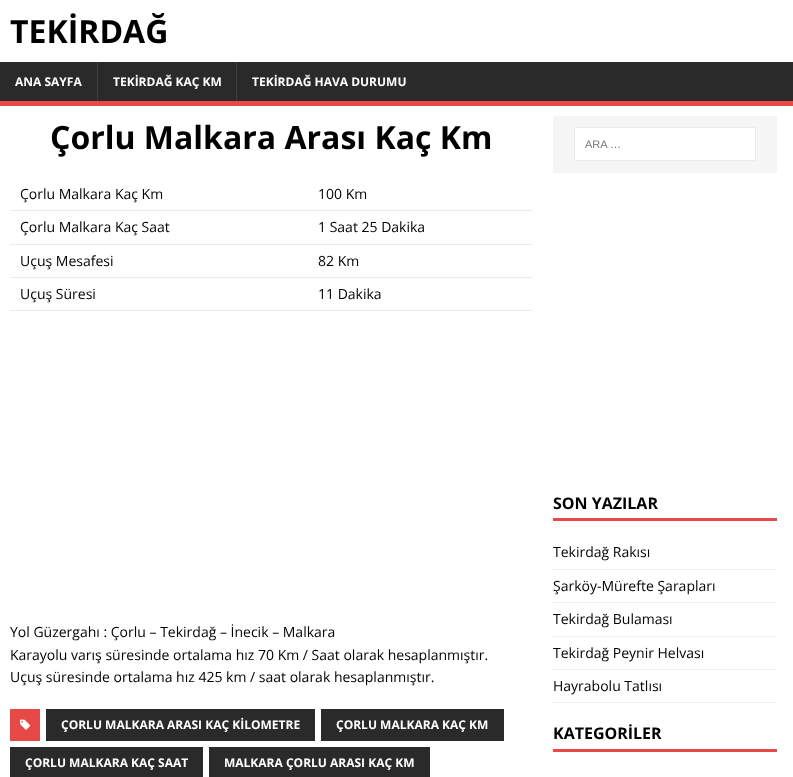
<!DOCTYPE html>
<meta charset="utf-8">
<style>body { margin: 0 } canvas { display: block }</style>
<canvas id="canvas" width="793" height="777"></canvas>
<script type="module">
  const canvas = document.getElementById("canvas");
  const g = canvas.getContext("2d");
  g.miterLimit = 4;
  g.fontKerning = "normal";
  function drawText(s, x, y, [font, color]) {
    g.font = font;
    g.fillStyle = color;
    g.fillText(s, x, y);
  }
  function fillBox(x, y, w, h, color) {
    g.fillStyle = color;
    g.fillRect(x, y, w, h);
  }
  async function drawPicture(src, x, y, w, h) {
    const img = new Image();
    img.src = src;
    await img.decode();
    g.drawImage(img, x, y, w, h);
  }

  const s1 = ["bold 32px Open Sans", "#000000"];
  const s2 = ["bold 12px Open Sans", "#FFFFFF"];
  const s3 = ["14px Open Sans", "#000000"];
  const s4 = ["11px Liberation Sans", "#757575"];
  const s5 = ["bold 16px Open Sans", "#000000"];

  fillBox(0, 0, 793, 777, "#FFFFFF");
  drawText("TEKİRDAĞ", 10, 43, s1);
  fillBox(0, 62, 793, 39, "#2A2A2A");
  fillBox(0, 101, 793, 5, "#E64946");
  drawText("ANA SAYFA", 15, 86, s2);
  fillBox(97, 62, 1, 39, "#3F3F3F");
  drawText("TEKİRDAĞ KAÇ KM", 113, 86, s2);
  fillBox(236, 62, 1, 39, "#3F3F3F");
  drawText("TEKİRDAĞ HAVA DURUMU", 252, 86, s2);
  drawText("Çorlu Malkara Arası Kaç Km", 50, 149, s1);
  drawText("Çorlu Malkara Kaç Km", 20, 199, s3);
  fillBox(10, 210, 522, 1, "#EBEBEB");
  drawText("100 Km", 318, 199, s3);
  drawText("Çorlu Malkara Kaç Saat", 20, 232, s3);
  fillBox(10, 244, 522, 1, "#EBEBEB");
  drawText("1 Saat 25 Dakika", 318, 232, s3);
  drawText("Uçuş Mesafesi", 20, 266, s3);
  fillBox(10, 277, 522, 1, "#EBEBEB");
  drawText("82 Km", 318, 266, s3);
  drawText("Uçuş Süresi", 20, 299, s3);
  fillBox(10, 310, 522, 1, "#EBEBEB");
  drawText("11 Dakika", 318, 299, s3);
  drawText("Yol Güzergahı : Çorlu – Tekirdağ – İnecik – Malkara", 10, 637, s3);
  drawText("Karayolu varış süresinde ortalama hız 70 Km / Saat olarak hesaplanmıştır.", 10, 660, s3);
  drawText("Uçuş süresinde ortalama hız 425 km / saat olarak hesaplanmıştır.", 10, 682, s3);
  fillBox(10, 709, 30, 32, "#E64946");
  await drawPicture("pic1.png", 20, 719, 11, 11);
  fillBox(46, 709, 269, 32, "#2A2A2A");
  drawText("ÇORLU MALKARA ARASI KAÇ KİLOMETRE", 61, 729, s2);
  fillBox(321, 709, 183, 32, "#2A2A2A");
  drawText("ÇORLU MALKARA KAÇ KM", 336, 729, s2);
  fillBox(10, 747, 193, 30, "#2A2A2A");
  drawText("ÇORLU MALKARA KAÇ SAAT", 25, 767, s2);
  fillBox(209, 747, 221, 30, "#2A2A2A");
  drawText("MALKARA ÇORLU ARASI KAÇ KM", 224, 767, s2);
  fillBox(553, 116, 224, 57, "#F5F5F5");
  g.fillStyle = "#FFFFFF";
  g.beginPath();
  g.rect(574.5, 127.5, 181, 33);
  g.fill();
  g.strokeStyle = "#EBEBEB";
  g.stroke();
  drawText("ARA …", 585, 148, s4);
  fillBox(553, 518, 224, 3, "#E64946");
  drawText("SON YAZILAR", 553, 509, s5);
  g.beginPath();
  g.moveTo(553, 569.5);
  g.lineTo(777, 569.5);
  g.strokeStyle = "#E5E5E5";
  g.setLineDash([1, 1]);
  g.stroke();
  drawText("Tekirdağ Rakısı", 553, 557, s3);
  g.beginPath();
  g.moveTo(553, 602.5);
  g.lineTo(777, 602.5);
  g.stroke();
  drawText("Şarköy-Mürefte Şarapları", 553, 591, s3);
  g.beginPath();
  g.moveTo(553, 636.5);
  g.lineTo(777, 636.5);
  g.stroke();
  drawText("Tekirdağ Bulaması", 553, 624, s3);
  g.beginPath();
  g.moveTo(553, 669.5);
  g.lineTo(777, 669.5);
  g.stroke();
  drawText("Tekirdağ Peynir Helvası", 553, 658, s3);
  g.beginPath();
  g.moveTo(553, 702.5);
  g.lineTo(777, 702.5);
  g.stroke();
  drawText("Hayrabolu Tatlısı", 553, 691, s3);
  fillBox(553, 749, 224, 3, "#E64946");
  drawText("KATEGORİLER", 553, 739, s5);
</script>
